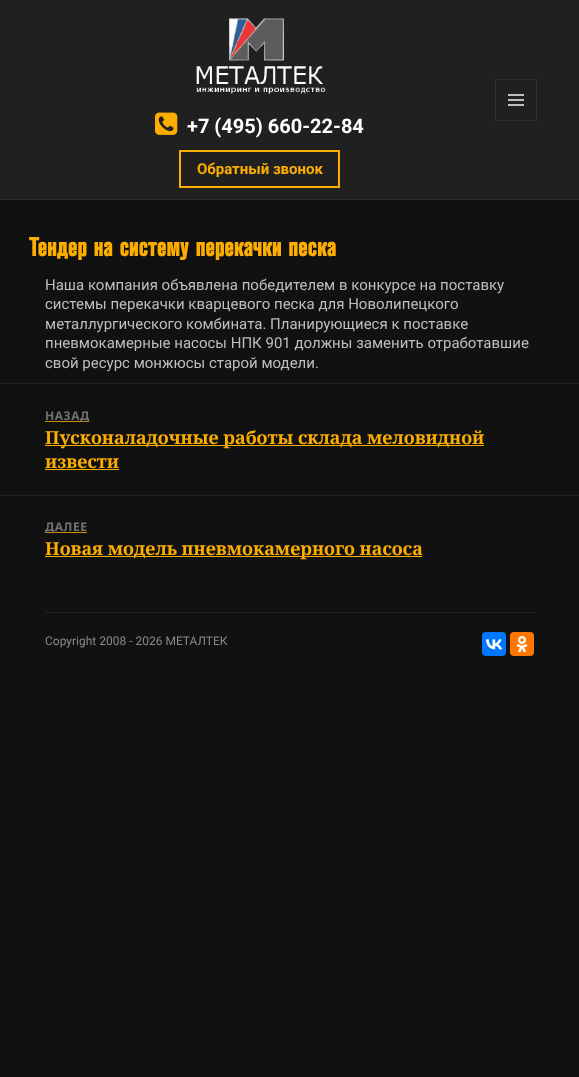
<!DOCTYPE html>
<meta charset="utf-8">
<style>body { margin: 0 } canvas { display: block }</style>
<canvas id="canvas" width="579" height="1077"></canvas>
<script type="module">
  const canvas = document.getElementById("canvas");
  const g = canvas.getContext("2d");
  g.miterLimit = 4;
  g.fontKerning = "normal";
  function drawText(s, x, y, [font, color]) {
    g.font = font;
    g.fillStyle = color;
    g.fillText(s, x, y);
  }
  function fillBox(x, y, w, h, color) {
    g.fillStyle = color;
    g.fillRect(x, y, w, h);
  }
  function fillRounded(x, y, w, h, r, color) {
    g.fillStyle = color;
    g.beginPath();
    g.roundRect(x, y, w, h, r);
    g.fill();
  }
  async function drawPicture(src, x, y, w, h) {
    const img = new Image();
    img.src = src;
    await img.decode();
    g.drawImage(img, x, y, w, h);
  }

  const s1 = ["bold 20px Roboto", "#FFFFFF"];
  const s2 = ["bold 15px Roboto", "#FCAE00"];
  const s3 = ["bold 26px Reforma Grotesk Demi", "#FCAE00"];
  const s4 = ["15px Roboto", "#BEBEBE"];
  const s5 = ["bold 12px Noto Sans", "#737272"];
  const s6 = ["bold 18px Noto Serif", "#FCAE00"];
  const s7 = ["12px Roboto", "#8A8A8A"];

  fillBox(0, 0, 579, 1077, "#111111");
  fillBox(0, 0, 579, 199, "#202020");
  fillBox(0, 199, 579, 1, "#303030");
  await drawPicture("pic1.png", 196, 18, 130, 76);
  g.strokeStyle = "#303030";
  g.strokeRect(495.5, 79.5, 41, 41);
  await drawPicture("pic2.png", 508, 94, 16, 12);
  await drawPicture("pic3.png", 155, 112, 23, 23);
  drawText("+7 (495) 660-22-84", 187, 133, s1);
  g.strokeStyle = "#FCAE00";
  g.lineWidth = 2;
  g.strokeRect(180, 151, 159, 36);
  drawText("Обратный звонок", 197, 174, s2);
  g.letterSpacing = "0.7px";
  drawText("Тендер на систему перекачки песка", 29, 256, s3);
  g.letterSpacing = "0px";
  drawText("Наша компания объявлена победителем в конкурсе на поставку", 45, 290, s4);
  drawText("системы перекачки кварцевого песка для Новолипецкого", 45, 309, s4);
  drawText("металлургического комбината. Планирующиеся к поставке", 45, 329, s4);
  drawText("пневмокамерные насосы НПК 901 должны заменить отработавшие", 45, 348, s4);
  drawText("свой ресурс монжюсы старой модели.", 45, 368, s4);
  fillBox(0, 383, 579, 1, "#222222");
  fillBox(45, 421, 44, 1, "#CD8F03");
  g.letterSpacing = "0.5px";
  drawText("НАЗАД", 45, 420, s5);
  fillBox(45, 445, 439, 1, "#FCAE00");
  g.letterSpacing = "0px";
  drawText("Пусконаладочные работы склада меловидной", 45, 444, s6);
  drawText("извести", 45, 468, s6);
  fillBox(45, 469, 74, 1, "#FCAE00");
  fillBox(0, 495, 579, 1, "#222222");
  fillBox(45, 532, 42, 1, "#CD8F03");
  g.letterSpacing = "0.5px";
  drawText("ДАЛЕЕ", 45, 531, s5);
  fillBox(45, 556, 377, 1, "#FCAE00");
  g.letterSpacing = "0px";
  drawText("Новая модель пневмокамерного насоса", 45, 555, s6);
  fillBox(0, 582, 579, 1, "#141414");
  fillBox(45, 612, 489, 1, "#222222");
  drawText("Copyright 2008 - 2026 МЕТАЛТЕК", 45, 645, s7);
  fillRounded(482, 632, 24, 24, 4, "#0077FF");
  await drawPicture("pic4.png", 486, 639, 16, 11);
  fillRounded(510, 632, 24, 24, 4, "#FF7700");
  await drawPicture("pic5.png", 516, 636, 12, 16);
</script>
